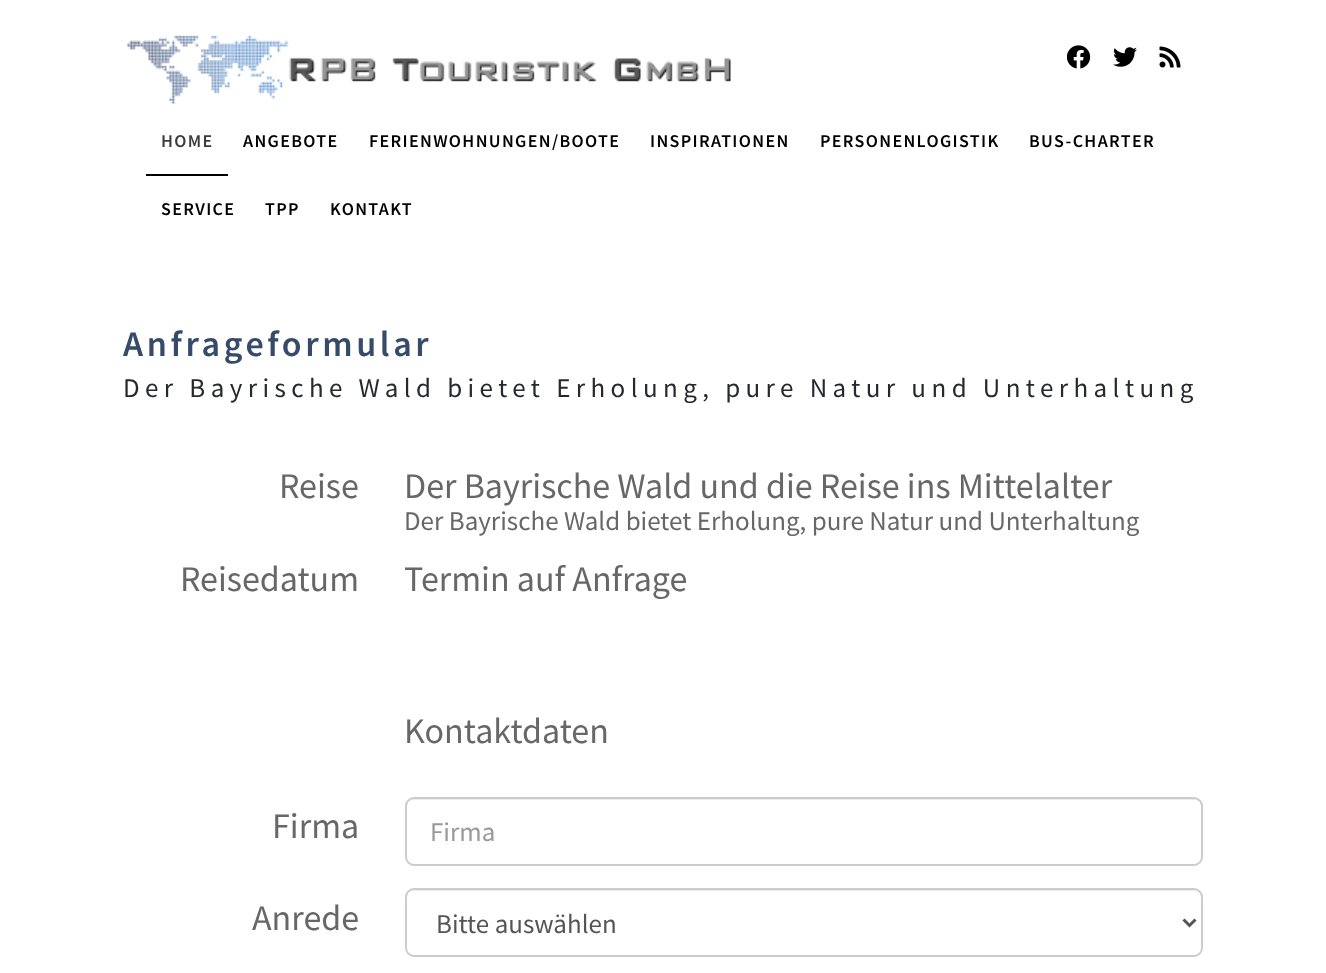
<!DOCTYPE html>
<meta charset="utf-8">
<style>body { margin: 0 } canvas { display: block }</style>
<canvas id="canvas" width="1326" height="973"></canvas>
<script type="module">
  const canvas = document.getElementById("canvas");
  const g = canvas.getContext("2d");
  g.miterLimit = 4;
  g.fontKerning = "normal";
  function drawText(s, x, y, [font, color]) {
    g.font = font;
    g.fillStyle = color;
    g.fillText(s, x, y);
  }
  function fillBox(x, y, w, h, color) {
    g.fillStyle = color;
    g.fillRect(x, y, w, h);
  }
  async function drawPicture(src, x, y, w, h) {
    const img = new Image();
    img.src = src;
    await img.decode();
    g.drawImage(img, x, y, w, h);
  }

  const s1 = ["600 18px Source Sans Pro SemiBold", "#3B3B3B"];
  const s2 = ["600 18px Source Sans Pro SemiBold", "#000000"];
  const s3 = ["600 36px Source Sans Pro SemiBold", "#364A6A"];
  const s4 = ["27px Source Sans Pro", "#25282C"];
  const s5 = ["36px Source Sans Pro", "#676767"];
  const s6 = ["27px Source Sans Pro", "#676767"];
  const s7 = ["27px Source Sans Pro", "#999999"];
  const s8 = ["27px Source Sans Pro", "#555555"];

  fillBox(0, 0, 1326, 973, "#FFFFFF");
  await drawPicture("pic1.png", 127, 35, 604, 69);
  await drawPicture("pic2.png", 1067, 45, 24, 24);
  await drawPicture("pic3.png", 1113, 47, 24, 20);
  await drawPicture("pic4.png", 1159, 46, 22, 22);
  fillBox(146, 174, 82, 2, "#000000");
  g.letterSpacing = "1.35px";
  drawText("HOME", 161, 147, s1);
  drawText("ANGEBOTE", 243, 147, s2);
  drawText("FERIENWOHNUNGEN/BOOTE", 369, 147, s2);
  drawText("INSPIRATIONEN", 650, 147, s2);
  drawText("PERSONENLOGISTIK", 820, 147, s2);
  drawText("BUS-CHARTER", 1029, 147, s2);
  drawText("SERVICE", 161, 215, s2);
  drawText("TPP", 265, 215, s2);
  drawText("KONTAKT", 330, 215, s2);
  g.letterSpacing = "3.6px";
  drawText("Anfrageformular", 123, 356, s3);
  g.letterSpacing = "5.4px";
  drawText("Der Bayrische Wald bietet Erholung, pure Natur und Unterhaltung", 123, 397, s4);
  g.letterSpacing = "0px";
  drawText("Reise", 279, 498, s5);
  drawText("Der Bayrische Wald und die Reise ins Mittelalter", 404, 498, s5);
  drawText("Der Bayrische Wald bietet Erholung, pure Natur und Unterhaltung", 404, 530, s6);
  drawText("Reisedatum", 180, 591, s5);
  drawText("Termin auf Anfrage", 404, 591, s5);
  drawText("Kontaktdaten", 404, 743, s5);
  drawText("Firma", 272, 838, s5);
  g.fillStyle = "#ECECEC";
  g.beginPath();
  g.moveTo(414, 800);
  g.lineTo(1194, 800);
  g.bezierCurveTo(1198, 800, 1202, 803, 1202, 807);
  g.lineTo(1202, 806);
  g.bezierCurveTo(1202, 802, 1198, 798, 1194, 798);
  g.lineTo(415, 798);
  g.bezierCurveTo(412, 798, 409, 800, 408, 803);
  g.bezierCurveTo(409, 801, 412, 800, 414, 800);
  g.closePath();
  g.fill();
  g.beginPath();
  g.roundRect(406, 798, 796, 67, 8);
  g.strokeStyle = "#CCCCCC";
  g.lineWidth = 2;
  g.stroke();
  drawText("Firma", 430, 841, s7);
  drawText("Anrede", 252, 930, s5);
  g.fillStyle = "#ECECEC";
  g.beginPath();
  g.moveTo(414, 891);
  g.lineTo(1194, 891);
  g.bezierCurveTo(1198, 891, 1202, 894, 1202, 898);
  g.bezierCurveTo(1202, 894, 1198, 890, 1194, 890);
  g.lineTo(415, 890);
  g.bezierCurveTo(413, 890, 411, 891, 409, 892);
  g.bezierCurveTo(411, 892, 412, 891, 414, 891);
  g.closePath();
  g.fill();
  g.beginPath();
  g.roundRect(406, 889, 796, 67, 8);
  g.stroke();
  g.beginPath();
  g.moveTo(1183.5, 919.5);
  g.lineTo(1189.5, 925.5);
  g.lineTo(1195.5, 919.5);
  g.strokeStyle = "#555555";
  g.lineWidth = 3;
  g.stroke();
  drawText("Bitte auswählen", 436, 933, s8);
</script>
